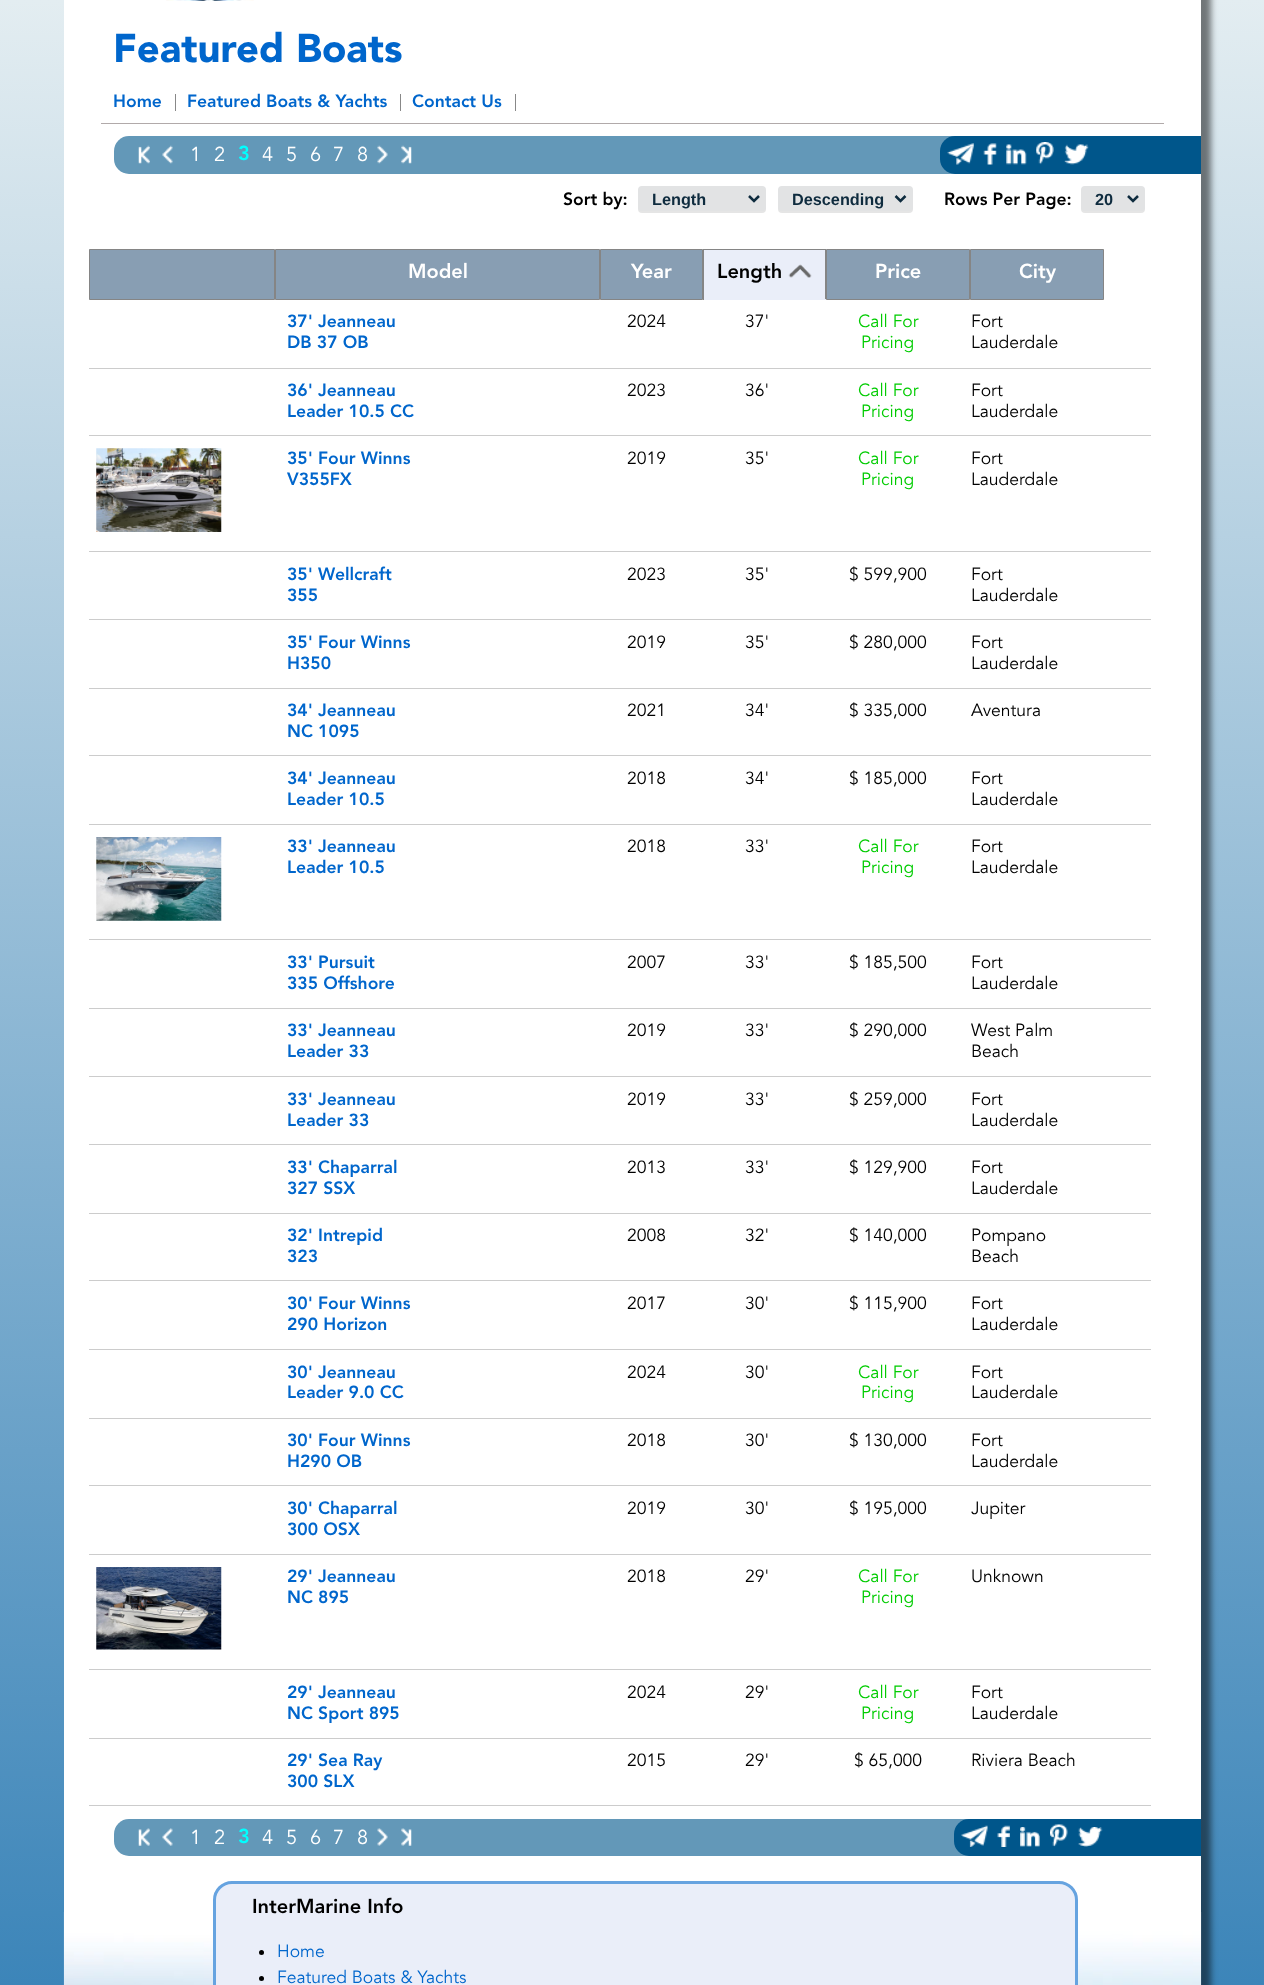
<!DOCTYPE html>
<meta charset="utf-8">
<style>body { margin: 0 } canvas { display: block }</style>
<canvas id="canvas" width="1264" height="1985"></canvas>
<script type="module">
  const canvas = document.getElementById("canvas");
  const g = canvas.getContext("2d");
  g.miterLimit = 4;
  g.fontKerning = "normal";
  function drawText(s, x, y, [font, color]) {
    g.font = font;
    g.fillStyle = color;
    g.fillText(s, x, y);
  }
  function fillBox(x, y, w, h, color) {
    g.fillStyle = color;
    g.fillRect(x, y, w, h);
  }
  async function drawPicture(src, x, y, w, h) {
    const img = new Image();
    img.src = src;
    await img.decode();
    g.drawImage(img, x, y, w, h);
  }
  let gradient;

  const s1 = ["900 40px Avenir", "#0066CC"];
  const s2 = ["900 17.5px 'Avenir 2'", "#0066CC"];
  const s3 = ["20px Avenir", "#FFFFFF"];
  const s4 = ["900 20px 'Avenir 2'", "#00FFFF"];
  const s5 = ["900 17.5px 'Avenir 2'", "#000000"];
  const s6 = ["bold 16.25px Liberation Sans", "#0E2B3E"];
  const s7 = ["900 20px 'Avenir 2'", "#FFFFFF"];
  const s8 = ["900 20px 'Avenir 2'", "#000000"];
  const s9 = ["17.5px Avenir", "#000000"];
  const s10 = ["17.5px Avenir", "#00CC00"];
  const s11 = ["17.5px Avenir", "#0066CC"];

  fillBox(0, 0, 1264, 1985, "#FFFFFF");
  gradient = g.createLinearGradient(632, 0, 633, 1985);
  gradient.addColorStop(0, "#E3EDF1");
  gradient.addColorStop(1, "#3C85B9");
  g.fillStyle = gradient;
  g.fillRect(0, 0, 1264, 1985);
  g.fillStyle = "rgba(0, 0, 0, 0.5)";
  g.filter = "blur(3px)";
  g.beginPath();
  g.roundRect(74, -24, 1137, 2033, 15);
  g.fill();
  g.filter = "none";
  fillBox(64, 0, 1137, 1912, "#FFFFFF");
  await drawPicture("pic1.png", 63, 1912, 1139, 73);
  fillBox(101, 123, 1063, 1, "#B1AAAA");
  await drawPicture("pic2.png", 166, 0, 88, 1);
  drawText("Featured Boats", 113, 62, s1);
  drawText("Home", 113, 107, s2);
  fillBox(175, 94, 1, 17, "#888888");
  drawText("Featured Boats & Yachts", 187, 107, s2);
  drawText("Contact Us", 412, 107, s2);
  fillBox(400, 94, 1, 17, "#888888");
  fillBox(515, 94, 1, 17, "#888888");
  g.fillStyle = "#6398B8";
  g.beginPath();
  g.roundRect(114, 136, 1087, 38, [15, 0, 0, 15]);
  g.fill();
  await drawPicture("pic3.png", 138, 145, 12, 19);
  await drawPicture("pic4.png", 162, 145, 11, 19);
  drawText("1", 190, 161, s3);
  drawText("2", 214, 161, s3);
  drawText("3", 238, 160, s4);
  drawText("4", 262, 161, s3);
  drawText("5", 286, 161, s3);
  drawText("6", 310, 161, s3);
  drawText("7", 333, 161, s3);
  drawText("8", 357, 161, s3);
  await drawPicture("pic5.png", 377, 145, 11, 19);
  await drawPicture("pic6.png", 401, 145, 11, 19);
  g.fillStyle = "#00568B";
  g.beginPath();
  g.roundRect(940, 136, 261, 38, [15, 0, 0, 15]);
  g.fill();
  await drawPicture("pic7.png", 947, 143, 27, 22);
  await drawPicture("pic8.png", 983, 143, 14, 22);
  await drawPicture("pic9.png", 1006, 144, 21, 21);
  await drawPicture("pic10.png", 1036, 142, 18, 23);
  await drawPicture("pic11.png", 1064, 144, 25, 21);
  drawText("Sort by:", 563, 205, s5);
  g.fillStyle = "rgba(0, 0, 0, 0.1)";
  g.filter = "blur(0.5px)";
  g.beginPath();
  g.roundRect(638, 188, 128, 25, 4);
  g.fill();
  g.filter = "none";
  g.fillStyle = "#E2E3E4";
  g.beginPath();
  g.roundRect(639.5, 187.5, 125, 22, 2.5);
  g.fill();
  g.strokeStyle = "#E2E3E4";
  g.lineWidth = 3;
  g.stroke();
  g.beginPath();
  g.moveTo(749, 196);
  g.lineTo(754, 201);
  g.lineTo(759, 196);
  g.strokeStyle = "#0E2B3E";
  g.lineWidth = 2.5;
  g.stroke();
  drawText("Length", 652, 205, s6);
  g.fillStyle = "rgba(0, 0, 0, 0.1)";
  g.filter = "blur(0.5px)";
  g.beginPath();
  g.roundRect(778, 188, 135, 25, 4);
  g.fill();
  g.filter = "none";
  g.fillStyle = "#E2E3E4";
  g.beginPath();
  g.roundRect(779.5, 187.5, 132, 22, 2.5);
  g.fill();
  g.strokeStyle = "#E2E3E4";
  g.lineWidth = 3;
  g.stroke();
  g.beginPath();
  g.moveTo(895.5, 196);
  g.lineTo(900.5, 201);
  g.lineTo(905.5, 196);
  g.strokeStyle = "#0E2B3E";
  g.lineWidth = 2.5;
  g.stroke();
  drawText("Descending", 792, 205, s6);
  drawText("Rows Per Page:", 944, 205, s5);
  g.fillStyle = "rgba(0, 0, 0, 0.1)";
  g.filter = "blur(0.5px)";
  g.beginPath();
  g.roundRect(1081, 188, 64, 25, 4);
  g.fill();
  g.filter = "none";
  g.fillStyle = "#E2E3E4";
  g.beginPath();
  g.roundRect(1082.5, 187.5, 61, 22, 2.5);
  g.fill();
  g.strokeStyle = "#E2E3E4";
  g.lineWidth = 3;
  g.stroke();
  g.beginPath();
  g.moveTo(1128, 196);
  g.lineTo(1133, 201);
  g.lineTo(1138, 196);
  g.strokeStyle = "#0E2B3E";
  g.lineWidth = 2.5;
  g.stroke();
  drawText("20", 1095, 205, s6);
  g.fillStyle = "#889EB3";
  g.beginPath();
  g.rect(89.5, 249.5, 185, 50);
  g.fill();
  g.strokeStyle = "#858585";
  g.lineWidth = 1;
  g.stroke();
  g.beginPath();
  g.rect(275.5, 249.5, 324, 50);
  g.fill();
  g.stroke();
  drawText("Model", 408, 278, s7);
  g.fillStyle = "#889EB3";
  g.beginPath();
  g.rect(600.5, 249.5, 102, 50);
  g.fill();
  g.stroke();
  drawText("Year", 631, 278, s7);
  fillBox(704, 250, 121, 49, "#EAEEF9");
  fillBox(703, 249, 123, 1, "#858585");
  fillBox(825, 249, 1, 51, "#858585");
  fillBox(703, 299, 123, 1, "#EAEEF9");
  fillBox(703, 249, 1, 51, "#858585");
  drawText("Length", 717, 278, s8);
  await drawPicture("pic12.png", 788, 264, 24, 14);
  g.fillStyle = "#889EB3";
  g.beginPath();
  g.rect(826.5, 249.5, 143, 50);
  g.fill();
  g.stroke();
  drawText("Price", 875, 278, s7);
  g.fillStyle = "#889EB3";
  g.beginPath();
  g.rect(970.5, 249.5, 133, 50);
  g.fill();
  g.stroke();
  drawText("City", 1019, 278, s7);
  fillBox(89, 368, 1062, 1, "#CCCCCC");
  drawText("37' Jeanneau", 287, 327, s2);
  drawText("DB 37 OB", 287, 348, s2);
  drawText("2024", 627, 327, s9);
  drawText("37'", 745, 327, s9);
  drawText("Call For", 858, 327, s10);
  drawText("Pricing", 861, 348, s10);
  drawText("Fort", 971, 327, s9);
  drawText("Lauderdale", 971, 348, s9);
  fillBox(89, 435, 1062, 1, "#CCCCCC");
  drawText("36' Jeanneau", 287, 396, s2);
  drawText("Leader 10.5 CC", 287, 417, s2);
  drawText("2023", 627, 396, s9);
  drawText("36'", 745, 396, s9);
  drawText("Call For", 858, 396, s10);
  drawText("Pricing", 861, 417, s10);
  drawText("Fort", 971, 396, s9);
  drawText("Lauderdale", 971, 417, s9);
  fillBox(89, 551, 1062, 1, "#CCCCCC");
  await drawPicture("pic13.png", 96, 448, 126, 84);
  drawText("35' Four Winns", 287, 464, s2);
  drawText("V355FX", 287, 485, s2);
  drawText("2019", 627, 464, s9);
  drawText("35'", 745, 464, s9);
  drawText("Call For", 858, 464, s10);
  drawText("Pricing", 861, 485, s10);
  drawText("Fort", 971, 464, s9);
  drawText("Lauderdale", 971, 485, s9);
  fillBox(89, 619, 1062, 1, "#CCCCCC");
  drawText("35' Wellcraft", 287, 580, s2);
  drawText("355", 287, 601, s2);
  drawText("2023", 627, 580, s9);
  drawText("35'", 745, 580, s9);
  drawText("$ 599,900", 849, 580, s9);
  drawText("Fort", 971, 580, s9);
  drawText("Lauderdale", 971, 601, s9);
  fillBox(89, 688, 1062, 1, "#CCCCCC");
  drawText("35' Four Winns", 287, 648, s2);
  drawText("H350", 287, 669, s2);
  drawText("2019", 627, 648, s9);
  drawText("35'", 745, 648, s9);
  drawText("$ 280,000", 849, 648, s9);
  drawText("Fort", 971, 648, s9);
  drawText("Lauderdale", 971, 669, s9);
  fillBox(89, 755, 1062, 1, "#CCCCCC");
  drawText("34' Jeanneau", 287, 716, s2);
  drawText("NC 1095", 287, 737, s2);
  drawText("2021", 627, 716, s9);
  drawText("34'", 745, 716, s9);
  drawText("$ 335,000", 849, 716, s9);
  drawText("Aventura", 971, 716, s9);
  fillBox(89, 824, 1062, 1, "#CCCCCC");
  drawText("34' Jeanneau", 287, 784, s2);
  drawText("Leader 10.5", 287, 805, s2);
  drawText("2018", 627, 784, s9);
  drawText("34'", 745, 784, s9);
  drawText("$ 185,000", 849, 784, s9);
  drawText("Fort", 971, 784, s9);
  drawText("Lauderdale", 971, 805, s9);
  fillBox(89, 939, 1062, 1, "#CCCCCC");
  await drawPicture("pic14.png", 96, 837, 126, 84);
  drawText("33' Jeanneau", 287, 852, s2);
  drawText("Leader 10.5", 287, 873, s2);
  drawText("2018", 627, 852, s9);
  drawText("33'", 745, 852, s9);
  drawText("Call For", 858, 852, s10);
  drawText("Pricing", 861, 873, s10);
  drawText("Fort", 971, 852, s9);
  drawText("Lauderdale", 971, 873, s9);
  fillBox(89, 1008, 1062, 1, "#CCCCCC");
  drawText("33' Pursuit", 287, 968, s2);
  drawText("335 Offshore", 287, 989, s2);
  drawText("2007", 627, 968, s9);
  drawText("33'", 745, 968, s9);
  drawText("$ 185,500", 849, 968, s9);
  drawText("Fort", 971, 968, s9);
  drawText("Lauderdale", 971, 989, s9);
  fillBox(89, 1076, 1062, 1, "#CCCCCC");
  drawText("33' Jeanneau", 287, 1036, s2);
  drawText("Leader 33", 287, 1057, s2);
  drawText("2019", 627, 1036, s9);
  drawText("33'", 745, 1036, s9);
  drawText("$ 290,000", 849, 1036, s9);
  drawText("West Palm", 971, 1036, s9);
  drawText("Beach", 971, 1057, s9);
  fillBox(89, 1144, 1062, 1, "#CCCCCC");
  drawText("33' Jeanneau", 287, 1105, s2);
  drawText("Leader 33", 287, 1126, s2);
  drawText("2019", 627, 1105, s9);
  drawText("33'", 745, 1105, s9);
  drawText("$ 259,000", 849, 1105, s9);
  drawText("Fort", 971, 1105, s9);
  drawText("Lauderdale", 971, 1126, s9);
  fillBox(89, 1213, 1062, 1, "#CCCCCC");
  drawText("33' Chaparral", 287, 1173, s2);
  drawText("327 SSX", 287, 1194, s2);
  drawText("2013", 627, 1173, s9);
  drawText("33'", 745, 1173, s9);
  drawText("$ 129,900", 849, 1173, s9);
  drawText("Fort", 971, 1173, s9);
  drawText("Lauderdale", 971, 1194, s9);
  fillBox(89, 1280, 1062, 1, "#CCCCCC");
  drawText("32' Intrepid", 287, 1241, s2);
  drawText("323", 287, 1262, s2);
  drawText("2008", 627, 1241, s9);
  drawText("32'", 745, 1241, s9);
  drawText("$ 140,000", 849, 1241, s9);
  drawText("Pompano", 971, 1241, s9);
  drawText("Beach", 971, 1262, s9);
  fillBox(89, 1349, 1062, 1, "#CCCCCC");
  drawText("30' Four Winns", 287, 1309, s2);
  drawText("290 Horizon", 287, 1330, s2);
  drawText("2017", 627, 1309, s9);
  drawText("30'", 745, 1309, s9);
  drawText("$ 115,900", 849, 1309, s9);
  drawText("Fort", 971, 1309, s9);
  drawText("Lauderdale", 971, 1330, s9);
  fillBox(89, 1418, 1062, 1, "#CCCCCC");
  drawText("30' Jeanneau", 287, 1378, s2);
  drawText("Leader 9.0 CC", 287, 1398, s2);
  drawText("2024", 627, 1378, s9);
  drawText("30'", 745, 1378, s9);
  drawText("Call For", 858, 1378, s10);
  drawText("Pricing", 861, 1398, s10);
  drawText("Fort", 971, 1378, s9);
  drawText("Lauderdale", 971, 1398, s9);
  fillBox(89, 1485, 1062, 1, "#CCCCCC");
  drawText("30' Four Winns", 287, 1446, s2);
  drawText("H290 OB", 287, 1467, s2);
  drawText("2018", 627, 1446, s9);
  drawText("30'", 745, 1446, s9);
  drawText("$ 130,000", 849, 1446, s9);
  drawText("Fort", 971, 1446, s9);
  drawText("Lauderdale", 971, 1467, s9);
  fillBox(89, 1554, 1062, 1, "#CCCCCC");
  drawText("30' Chaparral", 287, 1514, s2);
  drawText("300 OSX", 287, 1535, s2);
  drawText("2019", 627, 1514, s9);
  drawText("30'", 745, 1514, s9);
  drawText("$ 195,000", 849, 1514, s9);
  drawText("Jupiter", 971, 1514, s9);
  fillBox(89, 1669, 1062, 1, "#CCCCCC");
  await drawPicture("pic15.png", 96, 1567, 126, 83);
  drawText("29' Jeanneau", 287, 1582, s2);
  drawText("NC 895", 287, 1603, s2);
  drawText("2018", 627, 1582, s9);
  drawText("29'", 745, 1582, s9);
  drawText("Call For", 858, 1582, s10);
  drawText("Pricing", 861, 1603, s10);
  drawText("Unknown", 971, 1582, s9);
  fillBox(89, 1738, 1062, 1, "#CCCCCC");
  drawText("29' Jeanneau", 287, 1698, s2);
  drawText("NC Sport 895", 287, 1719, s2);
  drawText("2024", 627, 1698, s9);
  drawText("29'", 745, 1698, s9);
  drawText("Call For", 858, 1698, s10);
  drawText("Pricing", 861, 1719, s10);
  drawText("Fort", 971, 1698, s9);
  drawText("Lauderdale", 971, 1719, s9);
  fillBox(89, 1805, 1062, 1, "#CCCCCC");
  drawText("29' Sea Ray", 287, 1766, s2);
  drawText("300 SLX", 287, 1787, s2);
  drawText("2015", 627, 1766, s9);
  drawText("29'", 745, 1766, s9);
  drawText("$ 65,000", 854, 1766, s9);
  drawText("Riviera Beach", 971, 1766, s9);
  g.fillStyle = "#6398B8";
  g.beginPath();
  g.roundRect(114, 1819, 1087, 37, [15, 0, 0, 15]);
  g.fill();
  await drawPicture("pic16.png", 138, 1828, 12, 18);
  await drawPicture("pic17.png", 162, 1828, 11, 18);
  drawText("1", 190, 1844, s3);
  drawText("2", 214, 1844, s3);
  drawText("3", 238, 1843, s4);
  drawText("4", 262, 1844, s3);
  drawText("5", 286, 1844, s3);
  drawText("6", 310, 1844, s3);
  drawText("7", 333, 1844, s3);
  drawText("8", 357, 1844, s3);
  await drawPicture("pic18.png", 377, 1828, 11, 18);
  await drawPicture("pic19.png", 401, 1828, 11, 18);
  g.fillStyle = "#00568B";
  g.beginPath();
  g.roundRect(954, 1819, 247, 37, [15, 0, 0, 15]);
  g.fill();
  await drawPicture("pic20.png", 961, 1825, 27, 22);
  await drawPicture("pic21.png", 997, 1825, 13, 22);
  await drawPicture("pic22.png", 1020, 1827, 20, 20);
  await drawPicture("pic23.png", 1050, 1824, 18, 23);
  await drawPicture("pic24.png", 1078, 1827, 25, 20);
  g.save();
  g.beginPath();
  g.roundRect(213, 1881, 865, 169, 19);
  g.clip();
  gradient = g.createLinearGradient(645, 1884, 645, 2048);
  gradient.addColorStop(0.76, "#EAEEF9");
  gradient.addColorStop(1, "#CAD3DE");
  g.fillStyle = gradient;
  g.fillRect(213, 1884, 865, 101);
  g.restore();
  g.beginPath();
  g.roundRect(214.5, 1882.5, 862, 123, 17.5);
  g.strokeStyle = "#66A3E0";
  g.lineWidth = 3;
  g.stroke();
  drawText("InterMarine Info", 252, 1913, s8);
  g.beginPath();
  g.arc(261.5, 1952.5, 2.5, 0, Math.PI * 2);
  g.fill();
  drawText("Home", 277, 1957, s11);
  g.fillStyle = "#000000";
  g.beginPath();
  g.arc(261.5, 1978.5, 2.5, 0, Math.PI * 2);
  g.fill();
  drawText("Featured Boats & Yachts", 277, 1983, s11);
</script>
